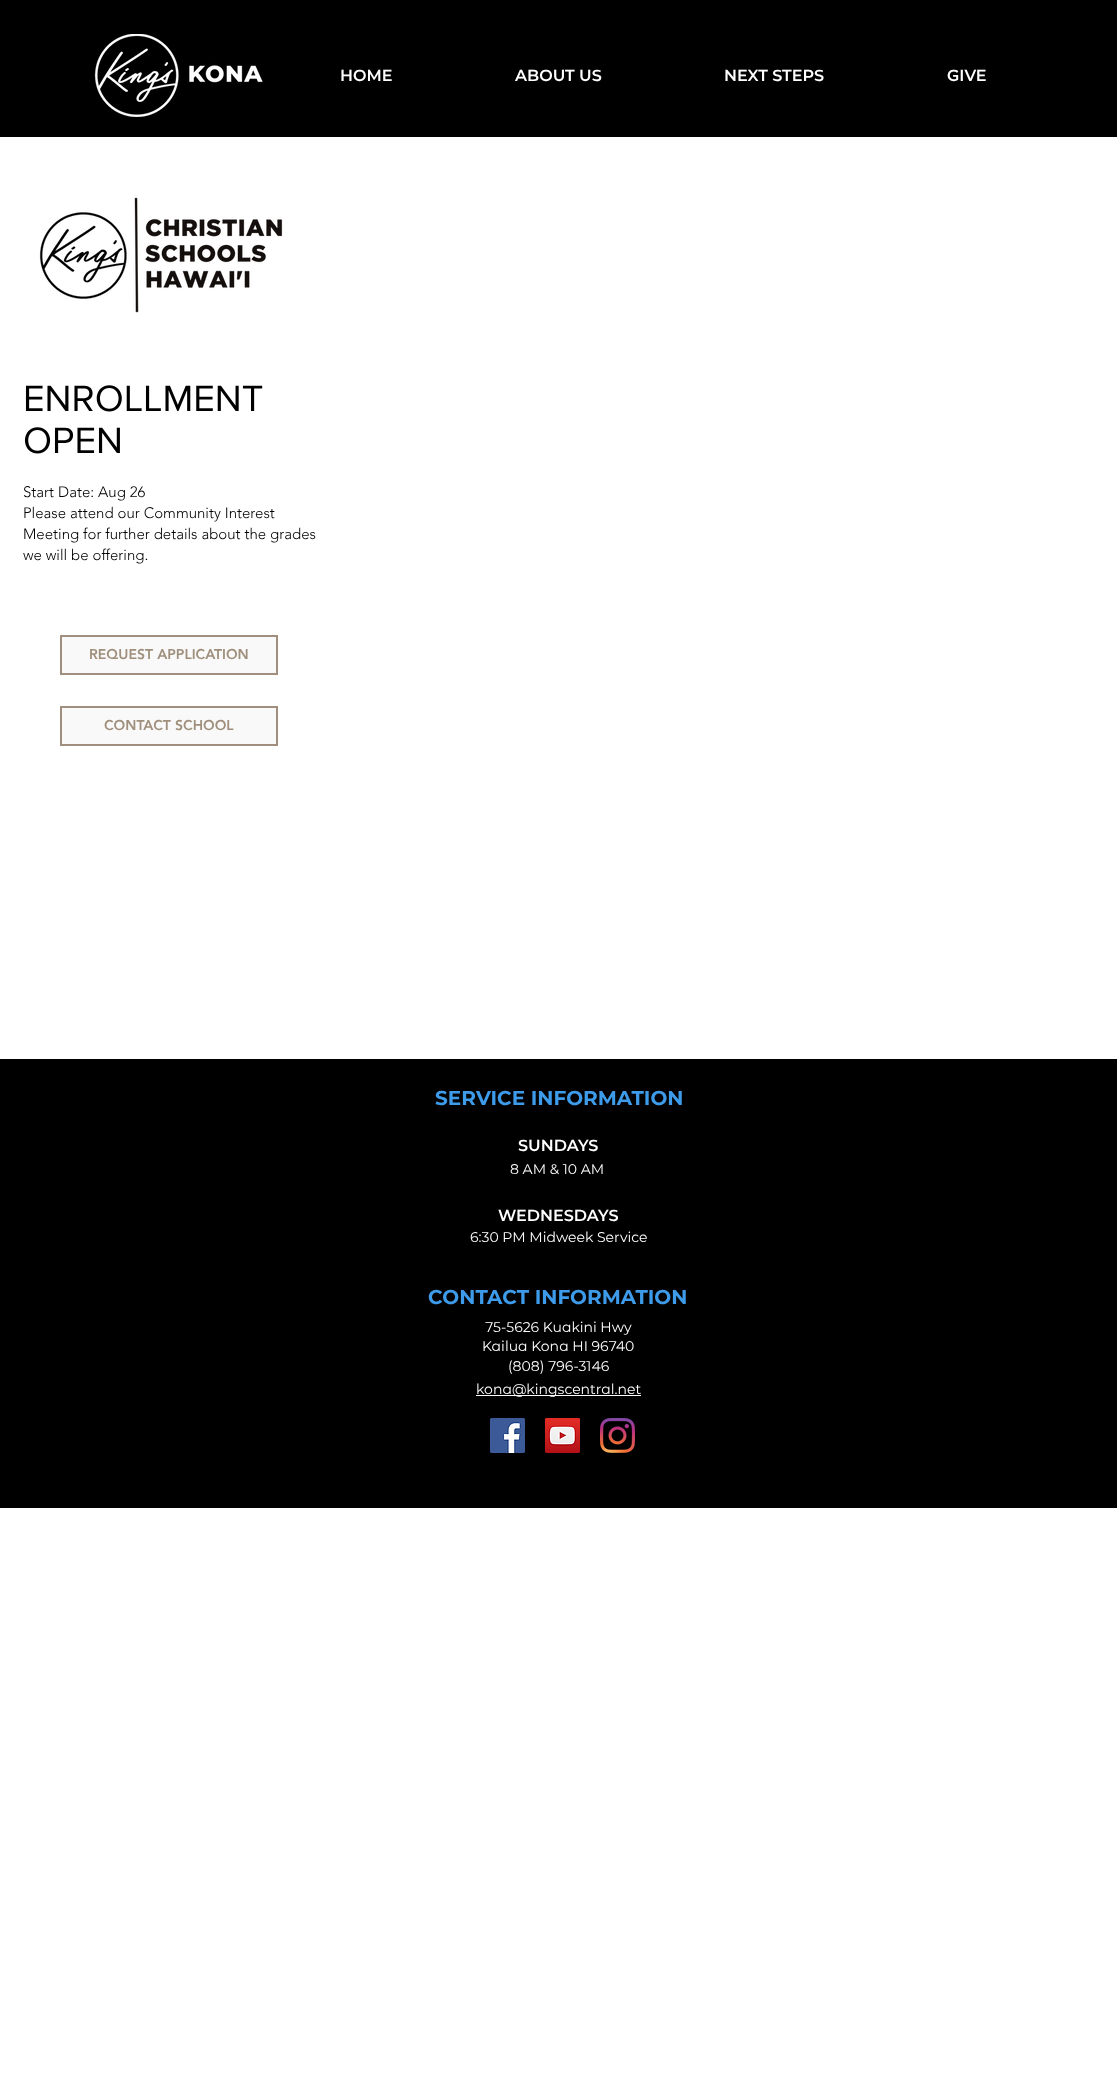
<!DOCTYPE html>
<meta charset="utf-8">
<style>body { margin: 0 } canvas { display: block }</style>
<canvas id="canvas" width="1117" height="2084"></canvas>
<script type="module">
  const canvas = document.getElementById("canvas");
  const g = canvas.getContext("2d");
  g.miterLimit = 4;
  g.fontKerning = "normal";
  function drawText(s, x, y, [font, color]) {
    g.font = font;
    g.fillStyle = color;
    g.fillText(s, x, y);
  }
  function fillBox(x, y, w, h, color) {
    g.fillStyle = color;
    g.fillRect(x, y, w, h);
  }
  async function drawPicture(src, x, y, w, h) {
    const img = new Image();
    img.src = src;
    await img.decode();
    g.drawImage(img, x, y, w, h);
  }

  const s1 = ["600 16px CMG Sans", "#FFFFFF"];
  const s2 = ["38px 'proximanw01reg'", "#000000"];
  const s3 = ["300 15px 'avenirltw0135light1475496'", "#000000"];
  const s4 = ["900 14px 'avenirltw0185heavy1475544'", "#9F8F7C"];
  const s5 = ["bold 20px CMG Sans", "#3D9BE9"];
  const s6 = ["14px CMG Sans", "#FFFFFF"];

  fillBox(0, 0, 1117, 2084, "#FFFFFF");
  fillBox(0, 0, 1117, 137, "#000000");
  await drawPicture("pic1.png", 94, 34, 169, 83);
  drawText("HOME", 340, 81, s1);
  drawText("ABOUT US", 515, 81, s1);
  drawText("NEXT STEPS", 724, 81, s1);
  drawText("GIVE", 947, 81, s1);
  await drawPicture("pic2.png", 39, 197, 244, 116);
  drawText("ENROLLMENT", 23, 411, s2);
  drawText("OPEN", 23, 453, s2);
  drawText("Start Date: Aug 26", 23, 497, s3);
  drawText("Please attend our Community Interest", 23, 518, s3);
  drawText("Meeting for further details about the grades", 23, 539, s3);
  drawText("we will be offering.", 23, 560, s3);
  g.fillStyle = "#F9F9F9";
  g.beginPath();
  g.rect(61, 636, 216, 38);
  g.fill();
  g.strokeStyle = "#9F8F7C";
  g.lineWidth = 2;
  g.stroke();
  drawText("REQUEST APPLICATION", 89, 659, s4);
  g.fillStyle = "#F9F9F9";
  g.beginPath();
  g.rect(61, 707, 216, 38);
  g.fill();
  g.stroke();
  drawText("CONTACT SCHOOL", 104, 730, s4);
  fillBox(0, 1059, 1117, 449, "#000000");
  drawText("SERVICE INFORMATION", 435, 1105, s5);
  drawText("SUNDAYS", 518, 1151, s1);
  drawText("8 AM & 10 AM", 510, 1174, s6);
  drawText("WEDNESDAYS", 498, 1221, s1);
  drawText("6:30 PM Midweek Service", 470, 1242, s6);
  drawText("75-5626 Kuakini Hwy", 485, 1332, s6);
  drawText("Kailua Kona HI 96740", 482, 1351, s6);
  drawText("(808) 796-3146", 508, 1371, s6);
  fillBox(476, 1395, 165, 1, "#FFFFFF");
  drawText("kona@kingscentral.net", 476, 1394, s6);
  drawText("CONTACT INFORMATION", 428, 1304, s5);
  await drawPicture("pic3.png", 490, 1418, 35, 35);
  await drawPicture("pic4.png", 545, 1418, 35, 35);
  await drawPicture("pic5.png", 600, 1418, 35, 35);
</script>
